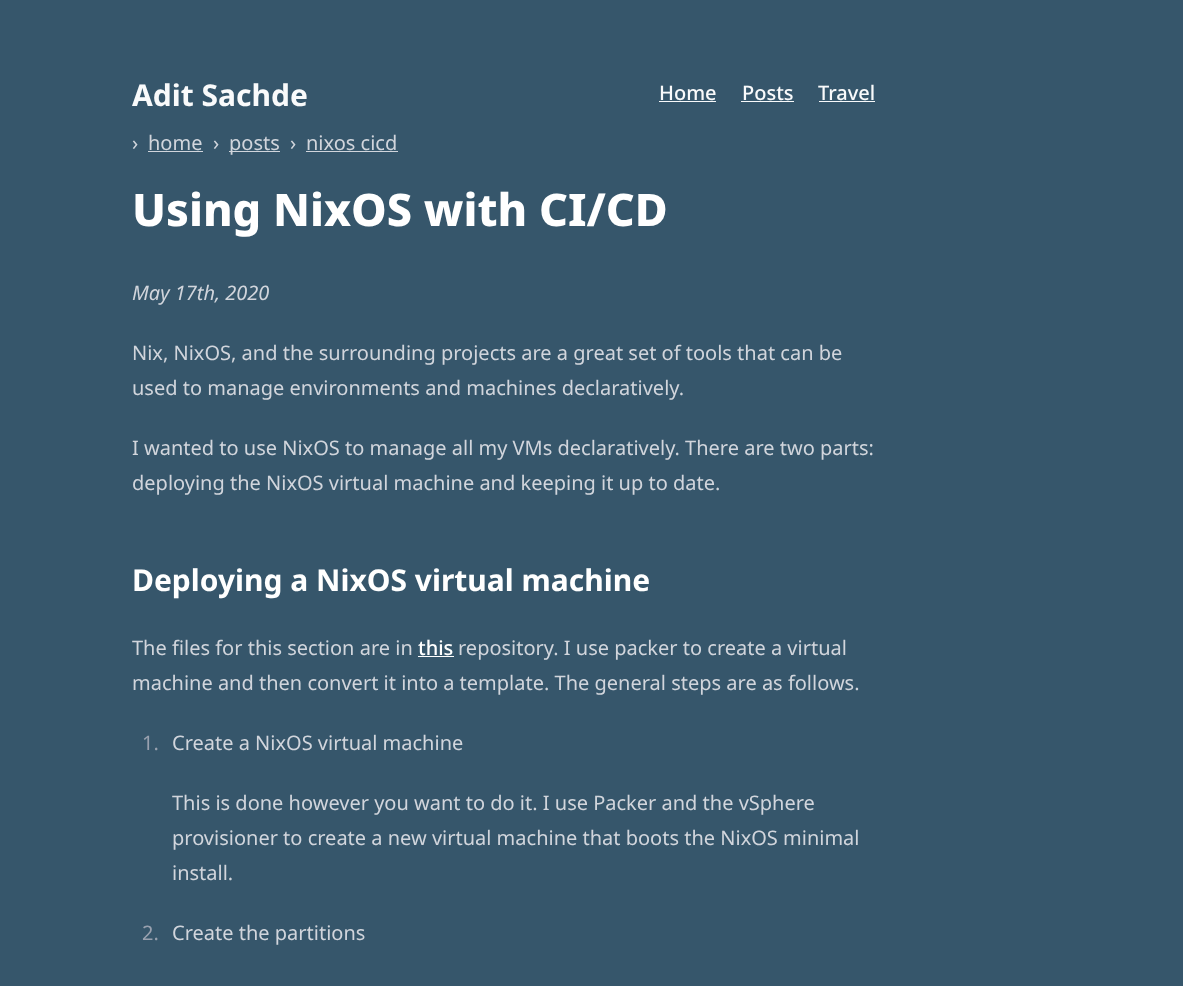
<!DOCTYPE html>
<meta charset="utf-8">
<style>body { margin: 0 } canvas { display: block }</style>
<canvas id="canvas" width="1183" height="986"></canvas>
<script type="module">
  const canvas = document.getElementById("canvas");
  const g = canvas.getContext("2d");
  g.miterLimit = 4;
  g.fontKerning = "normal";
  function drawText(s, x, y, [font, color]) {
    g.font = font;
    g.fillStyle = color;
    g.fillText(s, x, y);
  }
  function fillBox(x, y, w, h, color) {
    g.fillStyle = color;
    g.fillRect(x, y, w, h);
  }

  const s1 = ["bold 30px Noto Sans", "#F9FAFB"];
  const s2 = ["500 20px Noto Sans", "#F9FAFB"];
  const s3 = ["20px Noto Sans", "#D1D5DC"];
  const s4 = ["800 45px Noto Sans", "#FFFFFF"];
  const s5 = ["italic 20px Noto Sans", "#D1D5DC"];
  const s6 = ["bold 30px Noto Sans", "#FFFFFF"];
  const s7 = ["500 20px Noto Sans", "#FFFFFF"];
  const s8 = ["20px Noto Sans", "#99A1AF"];

  fillBox(0, 0, 1183, 986, "#36566B");
  drawText("Adit Sachde", 132, 106, s1);
  drawText("Home", 659, 100, s2);
  fillBox(659, 101, 57, 1, "#F9FAFB");
  drawText("Posts", 742, 100, s2);
  fillBox(741, 101, 53, 1, "#F9FAFB");
  drawText("Travel", 818, 100, s2);
  fillBox(819, 101, 56, 1, "#F9FAFB");
  drawText("›", 132, 150, s3);
  drawText("home", 148, 150, s3);
  fillBox(148, 151, 55, 1, "#D1D5DC");
  drawText("›", 213, 150, s3);
  fillBox(229, 151, 51, 1, "#D1D5DC");
  drawText("posts", 229, 150, s3);
  drawText("›", 290, 150, s3);
  drawText("nixos cicd", 306, 150, s3);
  fillBox(306, 151, 92, 1, "#D1D5DC");
  drawText("Using NixOS with CI/CD", 132, 226, s4);
  drawText("May 17th, 2020", 132, 300, s5);
  drawText("Nix, NixOS, and the surrounding projects are a great set of tools that can be", 132, 360, s3);
  drawText("used to manage environments and machines declaratively.", 132, 395, s3);
  drawText("I wanted to use NixOS to manage all my VMs declaratively. There are two parts:", 132, 455, s3);
  drawText("deploying the NixOS virtual machine and keeping it up to date.", 132, 490, s3);
  drawText("Deploying a NixOS virtual machine", 132, 591, s6);
  drawText("The files for this section are in", 132, 655, s3);
  drawText("this", 418, 655, s7);
  fillBox(418, 656, 36, 1, "#FFFFFF");
  drawText("repository. I use packer to create a virtual", 458, 655, s3);
  drawText("machine and then convert it into a template. The general steps are as follows.", 132, 690, s3);
  drawText("1.", 142, 750, s8);
  drawText("Create a NixOS virtual machine", 172, 750, s3);
  drawText("This is done however you want to do it. I use Packer and the vSphere", 172, 810, s3);
  drawText("provisioner to create a new virtual machine that boots the NixOS minimal", 172, 845, s3);
  drawText("install.", 172, 880, s3);
  drawText("2.", 142, 940, s8);
  drawText("Create the partitions", 172, 940, s3);
</script>
